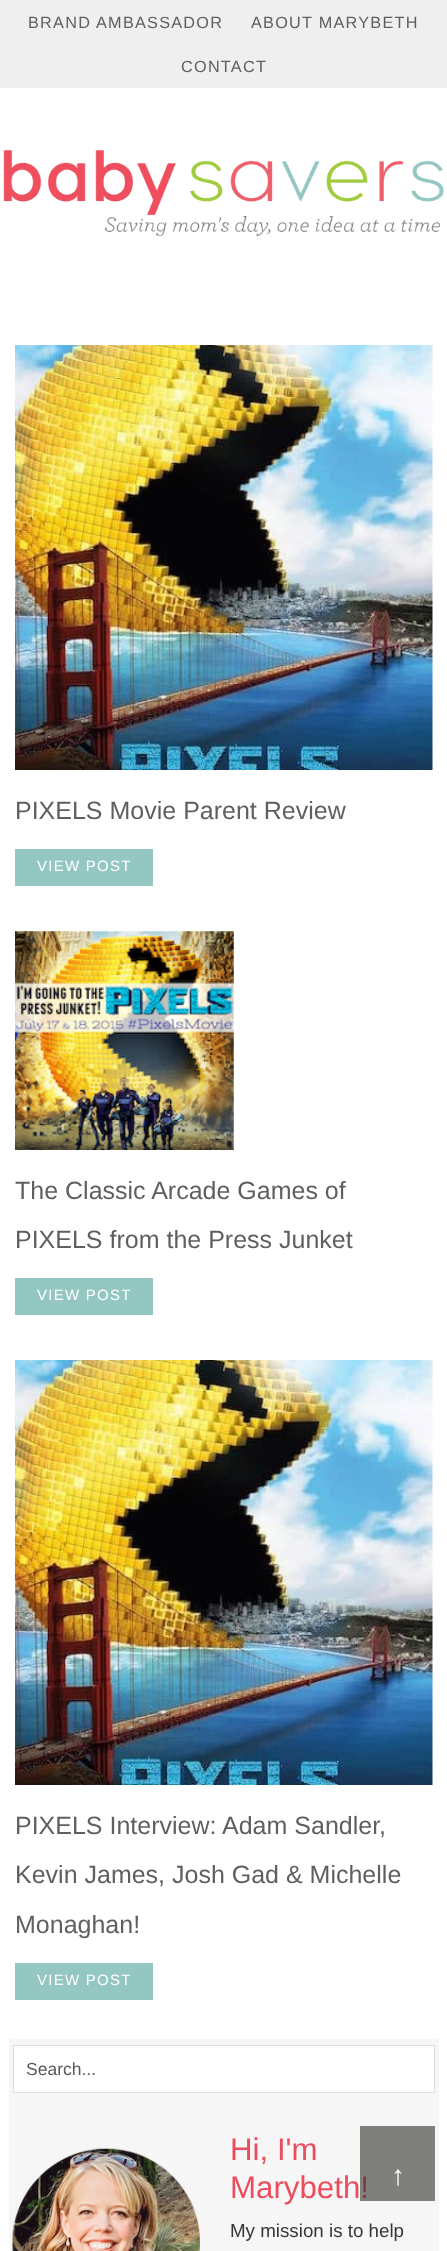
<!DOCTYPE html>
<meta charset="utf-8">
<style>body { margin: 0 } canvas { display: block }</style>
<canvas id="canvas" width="447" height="2251"></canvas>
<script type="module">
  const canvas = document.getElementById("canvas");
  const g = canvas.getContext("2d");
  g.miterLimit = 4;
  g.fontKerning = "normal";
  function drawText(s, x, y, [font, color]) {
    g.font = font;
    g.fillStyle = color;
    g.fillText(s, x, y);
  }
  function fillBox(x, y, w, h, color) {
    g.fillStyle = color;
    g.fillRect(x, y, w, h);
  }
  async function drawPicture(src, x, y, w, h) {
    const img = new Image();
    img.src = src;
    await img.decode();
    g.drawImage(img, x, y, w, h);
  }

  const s1 = ["16.25px Liberation Sans", "#5F5F5F"];
  const s2 = ["25px Liberation Sans", "#5F5F5F"];
  const s3 = ["15px Liberation Sans", "#FFFFFF"];
  const s4 = ["17.5px Liberation Sans", "#595959"];
  const s5 = ["31.25px Liberation Sans", "#EC4D5E"];
  const s6 = ["18.75px Liberation Sans", "#373737"];
  const s7 = ["28px Liberation Sans", "#FFFFFF"];

  fillBox(0, 0, 447, 2251, "#FFFFFF");
  fillBox(0, 0, 447, 88, "#F0EFEF");
  g.letterSpacing = "1.25px";
  drawText("BRAND AMBASSADOR", 28, 28, s1);
  drawText("ABOUT MARYBETH", 251, 28, s1);
  drawText("CONTACT", 181, 72, s1);
  await drawPicture("pic1.png", 3, 150, 441, 87);
  await drawPicture("pic2.png", 15, 345, 418, 425);
  g.letterSpacing = "0px";
  drawText("PIXELS Movie Parent Review", 15, 819, s2);
  fillBox(15, 849, 138, 37, "#94C7C2");
  g.letterSpacing = "1.25px";
  drawText("VIEW POST", 37, 871, s3);
  await drawPicture("pic3.png", 15, 931, 219, 219);
  g.letterSpacing = "0px";
  drawText("The Classic Arcade Games of", 15, 1199, s2);
  drawText("PIXELS from the Press Junket", 15, 1248, s2);
  fillBox(15, 1278, 138, 37, "#94C7C2");
  g.letterSpacing = "1.25px";
  drawText("VIEW POST", 37, 1300, s3);
  await drawPicture("pic2.png", 15, 1360, 418, 425);
  g.letterSpacing = "0px";
  drawText("PIXELS Interview: Adam Sandler,", 15, 1834, s2);
  drawText("Kevin James, Josh Gad & Michelle", 15, 1883, s2);
  drawText("Monaghan!", 15, 1933, s2);
  fillBox(15, 1963, 138, 37, "#94C7C2");
  g.letterSpacing = "1.25px";
  drawText("VIEW POST", 37, 1985, s3);
  fillBox(9, 2039, 430, 212, "#F6F6F6");
  g.fillStyle = "#FFFFFF";
  g.beginPath();
  g.rect(13.5, 2045.5, 421, 47);
  g.fill();
  g.strokeStyle = "#DDDDDD";
  g.stroke();
  g.letterSpacing = "0px";
  drawText("Search...", 26, 2075, s4);
  await drawPicture("pic4.png", 12, 2148, 188, 103);
  drawText("Hi, I'm", 230, 2160, s5);
  drawText("Marybeth!", 230, 2198, s5);
  drawText("My mission is to help", 230, 2237, s6);
  fillBox(360, 2126, 75, 75, "rgba(48, 48, 43, 0.6)");
  drawText("↑", 391, 2185, s7);
</script>
